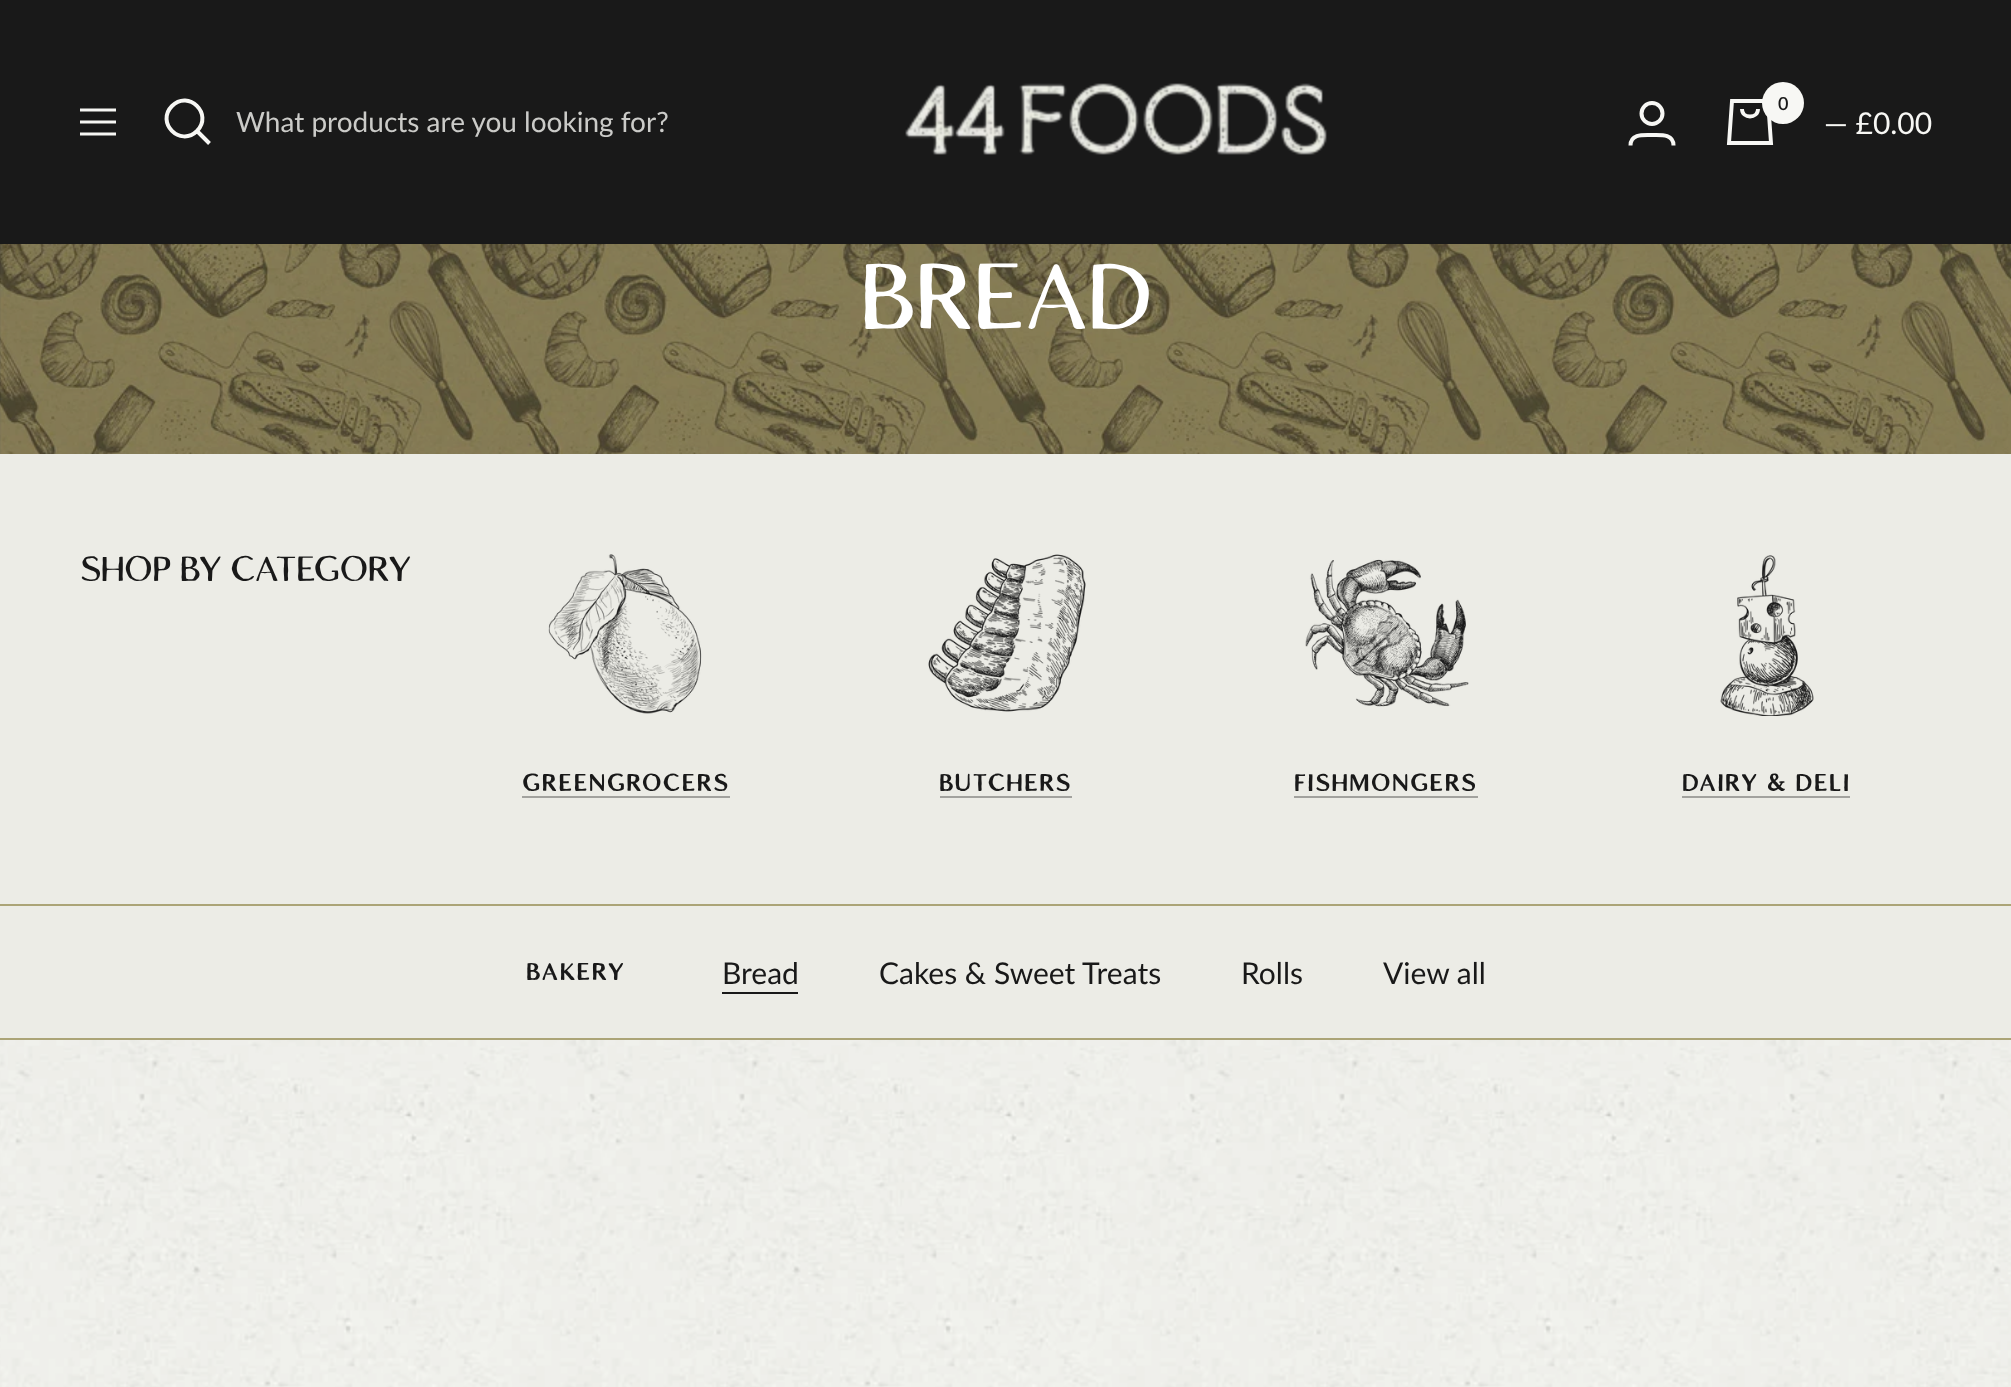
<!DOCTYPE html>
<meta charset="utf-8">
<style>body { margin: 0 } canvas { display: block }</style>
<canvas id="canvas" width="2011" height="1387"></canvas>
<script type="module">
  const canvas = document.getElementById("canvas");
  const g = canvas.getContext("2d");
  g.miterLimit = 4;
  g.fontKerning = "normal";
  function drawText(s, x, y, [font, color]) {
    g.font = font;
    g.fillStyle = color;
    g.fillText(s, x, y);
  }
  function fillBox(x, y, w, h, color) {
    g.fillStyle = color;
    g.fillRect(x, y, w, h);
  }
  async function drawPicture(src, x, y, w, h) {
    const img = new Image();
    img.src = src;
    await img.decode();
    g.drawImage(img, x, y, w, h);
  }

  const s1 = ["28px Lato", "#CBCBC8"];
  const s2 = ["600 18px Lato", "#191919"];
  const s3 = ["30px Lato", "#F7F7F4"];
  const s4 = ["96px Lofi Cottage", "#FFFFFF"];
  const s5 = ["36px Lofi Cottage", "#191919"];
  const s6 = ["bold 24px Lofi Cottage", "#191919"];
  const s7 = ["30px Lato", "#191919"];

  fillBox(0, 0, 2011, 1387, "#FFFFFF");
  await drawPicture("pic1.png", 0, 1040, 2011, 347);
  fillBox(0, 0, 2011, 244, "#191919");
  g.beginPath();
  g.moveTo(80, 110);
  g.lineTo(116, 110);
  g.moveTo(80, 134);
  g.lineTo(116, 134);
  g.closePath();
  g.moveTo(80, 122);
  g.lineTo(116, 122);
  g.closePath();
  g.strokeStyle = "#F7F7F4";
  g.lineWidth = 3;
  g.stroke();
  g.beginPath();
  g.moveTo(197, 131);
  g.bezierCurveTo(213.5, 114, 188.5, 89.5, 172, 106);
  g.bezierCurveTo(155.5, 122.5, 180, 147.5, 197, 131);
  g.closePath();
  g.moveTo(197, 131);
  g.lineTo(209.5, 143.5);
  g.lineWidth = 4;
  g.stroke();
  drawText("What products are you looking for?", 236, 132, s1);
  await drawPicture("pic2.png", 905, 83, 422, 72);
  g.beginPath();
  g.arc(1652, 113.5, 10.5, 0, Math.PI * 2);
  g.stroke();
  g.beginPath();
  g.moveTo(1630.5, 145.5);
  g.bezierCurveTo(1630.5, 133.5, 1643.5, 135, 1652, 135);
  g.bezierCurveTo(1660.5, 135, 1673.5, 133.5, 1673.5, 145.5);
  g.stroke();
  g.beginPath();
  g.moveTo(1732, 101);
  g.lineTo(1768, 101);
  g.lineTo(1771, 143);
  g.lineTo(1729, 143);
  g.closePath();
  g.moveTo(1742, 109);
  g.bezierCurveTo(1742, 119, 1758, 119, 1758, 109);
  g.lineWidth = 3.9;
  g.stroke();
  g.fillStyle = "#F7F7F4";
  g.beginPath();
  g.arc(1783, 103, 21, 0, Math.PI * 2);
  g.fill();
  drawText("0", 1778, 110, s2);
  drawText("— £0.00", 1824, 134, s3);
  await drawPicture("pic3.png", 0, 244, 2011, 210);
  fillBox(0, 244, 2011, 210, "rgba(25, 25, 25, 0.28)");
  g.letterSpacing = "-2px";
  drawText("BREAD", 860, 329, s4);
  fillBox(0, 454, 2011, 450, "#ECECE6");
  g.letterSpacing = "-0.6px";
  drawText("SHOP BY CATEGORY", 80, 581, s5);
  await drawPicture("pic4.png", 548, 554, 154, 160);
  g.letterSpacing = "2px";
  drawText("GREENGROCERS", 522, 791, s6);
  fillBox(522, 796, 208, 2, "#A2A29E");
  await drawPicture("pic5.png", 928, 554, 158, 158);
  drawText("BUTCHERS", 939, 791, s6);
  fillBox(940, 796, 132, 2, "#A2A29E");
  await drawPicture("pic6.png", 1305, 559, 164, 148);
  drawText("FISHMONGERS", 1294, 791, s6);
  fillBox(1294, 796, 184, 2, "#A2A29E");
  await drawPicture("pic7.png", 1720, 555, 94, 161);
  drawText("DAIRY & DELI", 1682, 791, s6);
  fillBox(1682, 796, 168, 2, "#A2A29E");
  fillBox(0, 906, 2011, 132, "#ECECE6");
  fillBox(0, 904, 2011, 2, "#ABA477");
  fillBox(0, 1038, 2011, 2, "#ABA477");
  drawText("BAKERY", 526, 980, s6);
  g.letterSpacing = "0px";
  drawText("Bread", 722, 984, s7);
  fillBox(722, 992, 76, 2, "#191919");
  drawText("Cakes & Sweet Treats", 879, 984, s7);
  drawText("Rolls", 1241, 984, s7);
  drawText("View all", 1383, 984, s7);
</script>
